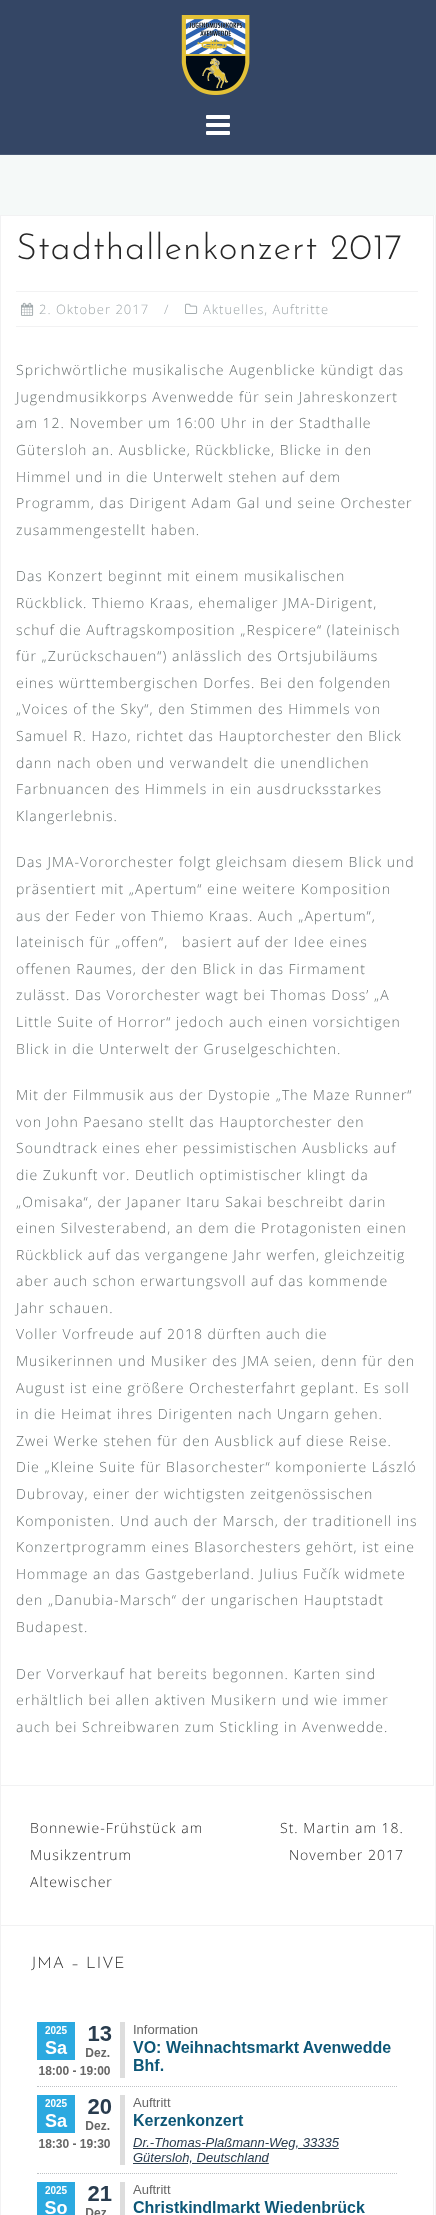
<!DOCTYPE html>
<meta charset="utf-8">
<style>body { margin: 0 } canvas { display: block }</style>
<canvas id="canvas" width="436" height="2215"></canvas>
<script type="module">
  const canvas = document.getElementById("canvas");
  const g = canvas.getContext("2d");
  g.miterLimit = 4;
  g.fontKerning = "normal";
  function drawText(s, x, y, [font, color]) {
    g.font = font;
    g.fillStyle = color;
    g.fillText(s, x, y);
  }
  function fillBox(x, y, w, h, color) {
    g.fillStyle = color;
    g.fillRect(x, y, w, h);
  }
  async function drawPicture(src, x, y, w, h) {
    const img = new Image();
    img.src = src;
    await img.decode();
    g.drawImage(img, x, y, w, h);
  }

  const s1 = ["100 36px Josefin Sans", "#272727"];
  const s2 = ["300 13px Open Sans", "#A0A8AB"];
  const s3 = ["300 14px Open Sans", "#656D6D"];
  const s4 = ["300 14px Open Sans", "#272727"];
  const s5 = ["100 16px Josefin Sans", "#272727"];

  fillBox(0, 0, 436, 2215, "#F5F9F8");
  fillBox(0, 0, 436, 154, "#344665");
  fillBox(0, 154, 436, 1, "#485974");
  await drawPicture("pic1.png", 181, 15, 69, 80);
  await drawPicture("pic2.png", 206, 115, 24, 20);
  fillBox(1, 215, 434, 2000, "#FFFFFF");
  fillBox(435, 215, 1, 2000, "#F2F2F3");
  fillBox(0, 1786, 1, 139, "#F2F2F3");
  g.strokeStyle = "#F2F2F3";
  g.strokeRect(0.5, 215.5, 433, 1570);
  g.letterSpacing = "1px";
  drawText("Stadthallenkonzert 2017", 16, 259, s1);
  fillBox(16, 291, 402, 1, "#F2F2F3");
  fillBox(16, 326, 402, 1, "#F2F2F3");
  await drawPicture("pic3.png", 21, 302, 13, 14);
  drawText("2. Oktober 2017", 39, 314, s2);
  drawText("/", 164, 314, s2);
  await drawPicture("pic4.png", 185, 303, 13, 11);
  drawText("Aktuelles, Auftritte", 203, 314, s2);
  drawText("Sprichwörtliche musikalische Augenblicke kündigt das", 16, 375, s3);
  drawText("Jugendmusikkorps Avenwedde für sein Jahreskonzert", 16, 402, s3);
  drawText("am 12. November um 16:00 Uhr in der Stadthalle", 16, 428, s3);
  drawText("Gütersloh an. Ausblicke, Rückblicke, Blicke in den", 16, 455, s3);
  drawText("Himmel und in die Unterwelt stehen auf dem", 16, 482, s3);
  drawText("Programm, das Dirigent Adam Gal und seine Orchester", 16, 508, s3);
  drawText("zusammengestellt haben.", 16, 535, s3);
  drawText("Das Konzert beginnt mit einem musikalischen", 16, 581, s3);
  drawText("Rückblick. Thiemo Kraas, ehemaliger JMA-Dirigent,", 16, 608, s3);
  drawText("schuf die Auftragskomposition „Respicere“ (lateinisch", 16, 635, s3);
  drawText("für „Zurückschauen“) anlässlich des Ortsjubiläums", 16, 661, s3);
  drawText("eines württembergischen Dorfes. Bei den folgenden", 16, 688, s3);
  drawText("„Voices of the Sky“, den Stimmen des Himmels von", 16, 714, s3);
  drawText("Samuel R. Hazo, richtet das Hauptorchester den Blick", 16, 741, s3);
  drawText("dann nach oben und verwandelt die unendlichen", 16, 768, s3);
  drawText("Farbnuancen des Himmels in ein ausdrucksstarkes", 16, 794, s3);
  drawText("Klangerlebnis.", 16, 821, s3);
  drawText("Das JMA-Vororchester folgt gleichsam diesem Blick und", 16, 867, s3);
  drawText("präsentiert mit „Apertum“ eine weitere Komposition", 16, 894, s3);
  drawText("aus der Feder von Thiemo Kraas. Auch „Apertum“,", 16, 921, s3);
  drawText("lateinisch für „offen“,   basiert auf der Idee eines", 16, 947, s3);
  drawText("offenen Raumes, der den Blick in das Firmament", 16, 974, s3);
  drawText("zulässt. Das Vororchester wagt bei Thomas Doss’ „A", 16, 1000, s3);
  drawText("Little Suite of Horror“ jedoch auch einen vorsichtigen", 16, 1027, s3);
  drawText("Blick in die Unterwelt der Gruselgeschichten.", 16, 1054, s3);
  drawText("Mit der Filmmusik aus der Dystopie „The Maze Runner“", 16, 1100, s3);
  drawText("von John Paesano stellt das Hauptorchester den", 16, 1127, s3);
  drawText("Soundtrack eines eher pessimistischen Ausblicks auf", 16, 1153, s3);
  drawText("die Zukunft vor. Deutlich optimistischer klingt da", 16, 1180, s3);
  drawText("„Omisaka“, der Japaner Itaru Sakai beschreibt darin", 16, 1207, s3);
  drawText("einen Silvesterabend, an dem die Protagonisten einen", 16, 1233, s3);
  drawText("Rückblick auf das vergangene Jahr werfen, gleichzeitig", 16, 1260, s3);
  drawText("aber auch schon erwartungsvoll auf das kommende", 16, 1286, s3);
  drawText("Jahr schauen.", 16, 1313, s3);
  drawText("Voller Vorfreude auf 2018 dürften auch die", 16, 1339, s3);
  drawText("Musikerinnen und Musiker des JMA seien, denn für den", 16, 1366, s3);
  drawText("August ist eine größere Orchesterfahrt geplant. Es soll", 16, 1393, s3);
  drawText("in die Heimat ihres Dirigenten nach Ungarn gehen.", 16, 1419, s3);
  drawText("Zwei Werke stehen für den Ausblick auf diese Reise.", 16, 1446, s3);
  drawText("Die „Kleine Suite für Blasorchester“ komponierte László", 16, 1472, s3);
  drawText("Dubrovay, einer der wichtigsten zeitgenössischen", 16, 1499, s3);
  drawText("Komponisten. Und auch der Marsch, der traditionell ins", 16, 1526, s3);
  drawText("Konzertprogramm eines Blasorchesters gehört, ist eine", 16, 1552, s3);
  drawText("Hommage an das Gastgeberland. Julius Fučík widmete", 16, 1579, s3);
  drawText("den „Danubia-Marsch“ der ungarischen Hauptstadt", 16, 1605, s3);
  drawText("Budapest.", 16, 1632, s3);
  drawText("Der Vorverkauf hat bereits begonnen. Karten sind", 16, 1679, s3);
  drawText("erhältlich bei allen aktiven Musikern und wie immer", 16, 1705, s3);
  drawText("auch bei Schreibwaren zum Stickling in Avenwedde.", 16, 1732, s3);
  drawText("Bonnewie-Frühstück am", 30, 1833, s4);
  drawText("Musikzentrum", 30, 1860, s4);
  drawText("Altewischer", 30, 1887, s4);
  drawText("St. Martin am 18.", 280, 1833, s4);
  drawText("November 2017", 289, 1860, s4);
  g.strokeRect(0.5, 1925.5, 433, 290);
  drawText("JMA – LIVE", 31, 1968, s5);
  await drawPicture("pic5.png", 37, 2022, 360, 193);
</script>
